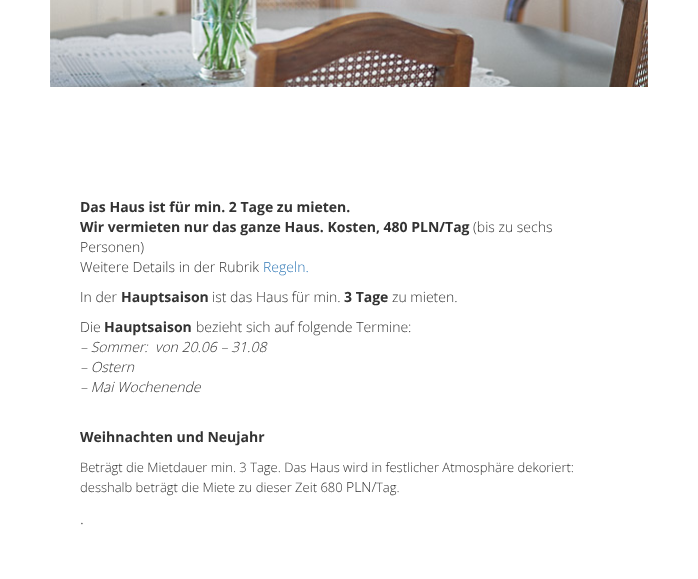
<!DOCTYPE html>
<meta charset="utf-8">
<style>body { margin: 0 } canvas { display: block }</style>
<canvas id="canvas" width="698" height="579"></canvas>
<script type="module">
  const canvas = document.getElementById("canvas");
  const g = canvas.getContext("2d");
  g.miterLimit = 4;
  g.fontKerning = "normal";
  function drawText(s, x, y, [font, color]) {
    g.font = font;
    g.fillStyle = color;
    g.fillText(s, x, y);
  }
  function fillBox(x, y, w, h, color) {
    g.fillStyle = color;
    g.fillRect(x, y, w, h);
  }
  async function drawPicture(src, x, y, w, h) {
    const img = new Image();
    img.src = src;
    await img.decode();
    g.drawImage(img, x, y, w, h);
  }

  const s1 = ["bold 14px Open Sans", "#333333"];
  const s2 = ["300 14px Open Sans", "#333333"];
  const s3 = ["300 14px Open Sans", "#337AB7"];
  const s4 = ["italic 300 14px Open Sans", "#333333"];
  const s5 = ["300 13px Open Sans", "#333333"];
  const s6 = ["300 16px Open Sans", "#333333"];

  fillBox(0, 0, 698, 579, "#FFFFFF");
  await drawPicture("pic1.png", 50, 0, 598, 87);
  drawText("Das Haus ist für min. 2 Tage zu mieten.", 80, 212, s1);
  drawText("Wir vermieten nur das ganze Haus. Kosten, 480 PLN/Tag", 80, 232, s1);
  drawText("(bis zu sechs", 473, 232, s2);
  drawText("Personen)", 80, 252, s2);
  drawText("Weitere Details in der Rubrik", 80, 272, s2);
  drawText("Regeln.", 263, 272, s3);
  drawText("In der", 80, 302, s2);
  drawText("Hauptsaison", 121, 302, s1);
  drawText("ist das Haus für min.", 212, 302, s2);
  drawText("3 Tage", 344, 302, s1);
  drawText("zu mieten.", 392, 302, s2);
  drawText("Die", 80, 332, s2);
  drawText("Hauptsaison", 104, 332, s1);
  drawText("bezieht sich auf folgende Termine:", 196, 332, s2);
  drawText("– Sommer:  von 20.06 – 31.08", 80, 352, s4);
  drawText("– Ostern", 80, 372, s4);
  drawText("– Mai Wochenende", 80, 392, s4);
  drawText("Weihnachten und Neujahr", 80, 442, s1);
  drawText("Beträgt die Mietdauer min. 3 Tage. Das Haus wird in festlicher Atmosphäre dekoriert:", 80, 472, s5);
  drawText("desshalb beträgt die Miete zu dieser Zeit 680", 80, 492, s5);
  drawText("PLN/", 346, 492, s2);
  drawText("Tag.", 376, 492, s5);
  drawText(".", 80, 524, s6);
</script>
